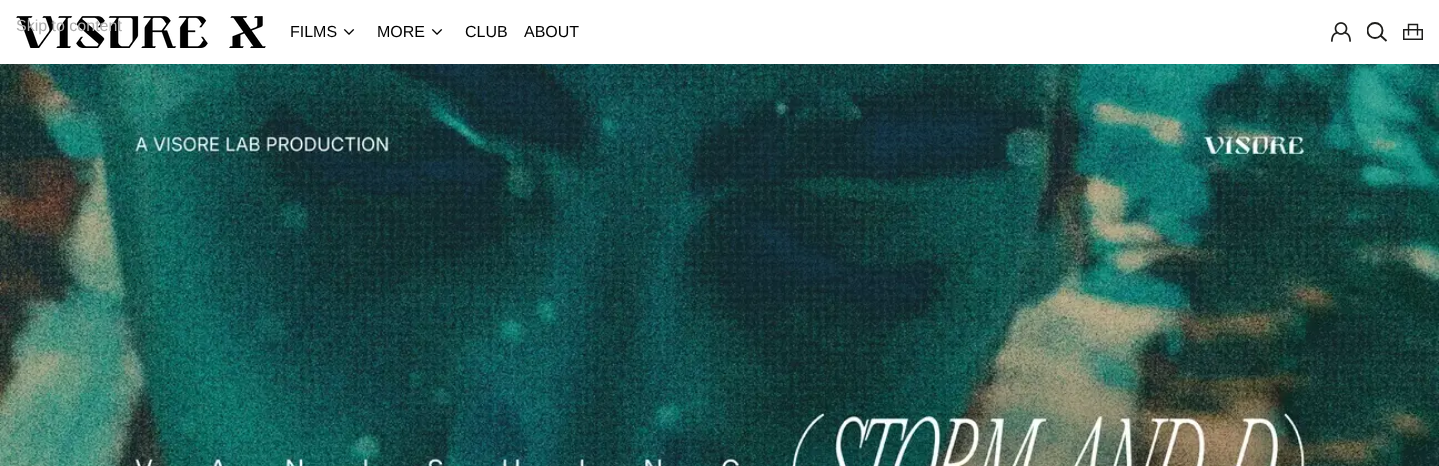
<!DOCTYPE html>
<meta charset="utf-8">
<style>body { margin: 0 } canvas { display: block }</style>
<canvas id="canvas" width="1439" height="466"></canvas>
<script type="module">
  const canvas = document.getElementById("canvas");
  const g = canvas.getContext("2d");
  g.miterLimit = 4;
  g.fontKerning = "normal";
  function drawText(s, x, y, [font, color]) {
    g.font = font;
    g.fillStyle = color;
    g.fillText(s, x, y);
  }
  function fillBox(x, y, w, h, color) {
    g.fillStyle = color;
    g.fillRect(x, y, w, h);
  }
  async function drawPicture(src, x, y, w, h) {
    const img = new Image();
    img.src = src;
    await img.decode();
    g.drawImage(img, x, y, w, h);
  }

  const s1 = ["16px Liberation Sans", "#AEAEAE"];
  const s2 = ["16px Liberation Sans", "#000000"];

  fillBox(0, 0, 1439, 466, "#FFFFFF");
  await drawPicture("pic1.png", 16, 16, 250, 32);
  drawText("Skip to content", 16, 31, s1);
  drawText("FILMS", 290, 37, s2);
  await drawPicture("pic2.png", 343, 29, 12, 6);
  drawText("MORE", 377, 37, s2);
  await drawPicture("pic2.png", 431, 29, 12, 6);
  drawText("CLUB", 465, 37, s2);
  drawText("ABOUT", 524, 37, s2);
  await drawPicture("pic3.png", 1331, 22, 20, 20);
  g.save();
  g.beginPath();
  g.rect(1367, 22, 20, 20);
  g.clip();
  g.beginPath();
  g.arc(1375, 30.5, 7.5, 0, Math.PI * 2);
  g.strokeStyle = "#1D1D1B";
  g.lineWidth = 1.9;
  g.stroke();
  g.restore();
  g.beginPath();
  g.moveTo(1386.5, 41);
  g.lineTo(1380.5, 35.5);
  g.strokeStyle = "#1D1D1B";
  g.lineWidth = 1.9;
  g.stroke();
  g.lineWidth = 1.5;
  g.strokeRect(1403.75, 29.75, 18.5, 9.5);
  g.beginPath();
  g.moveTo(1408.5, 35.5);
  g.lineTo(1408.5, 24.5);
  g.lineTo(1417.5, 24.5);
  g.lineTo(1417.5, 35.5);
  g.lineWidth = 1.4;
  g.stroke();
  await drawPicture("pic4.png", 0, 64, 1439, 402);
</script>
